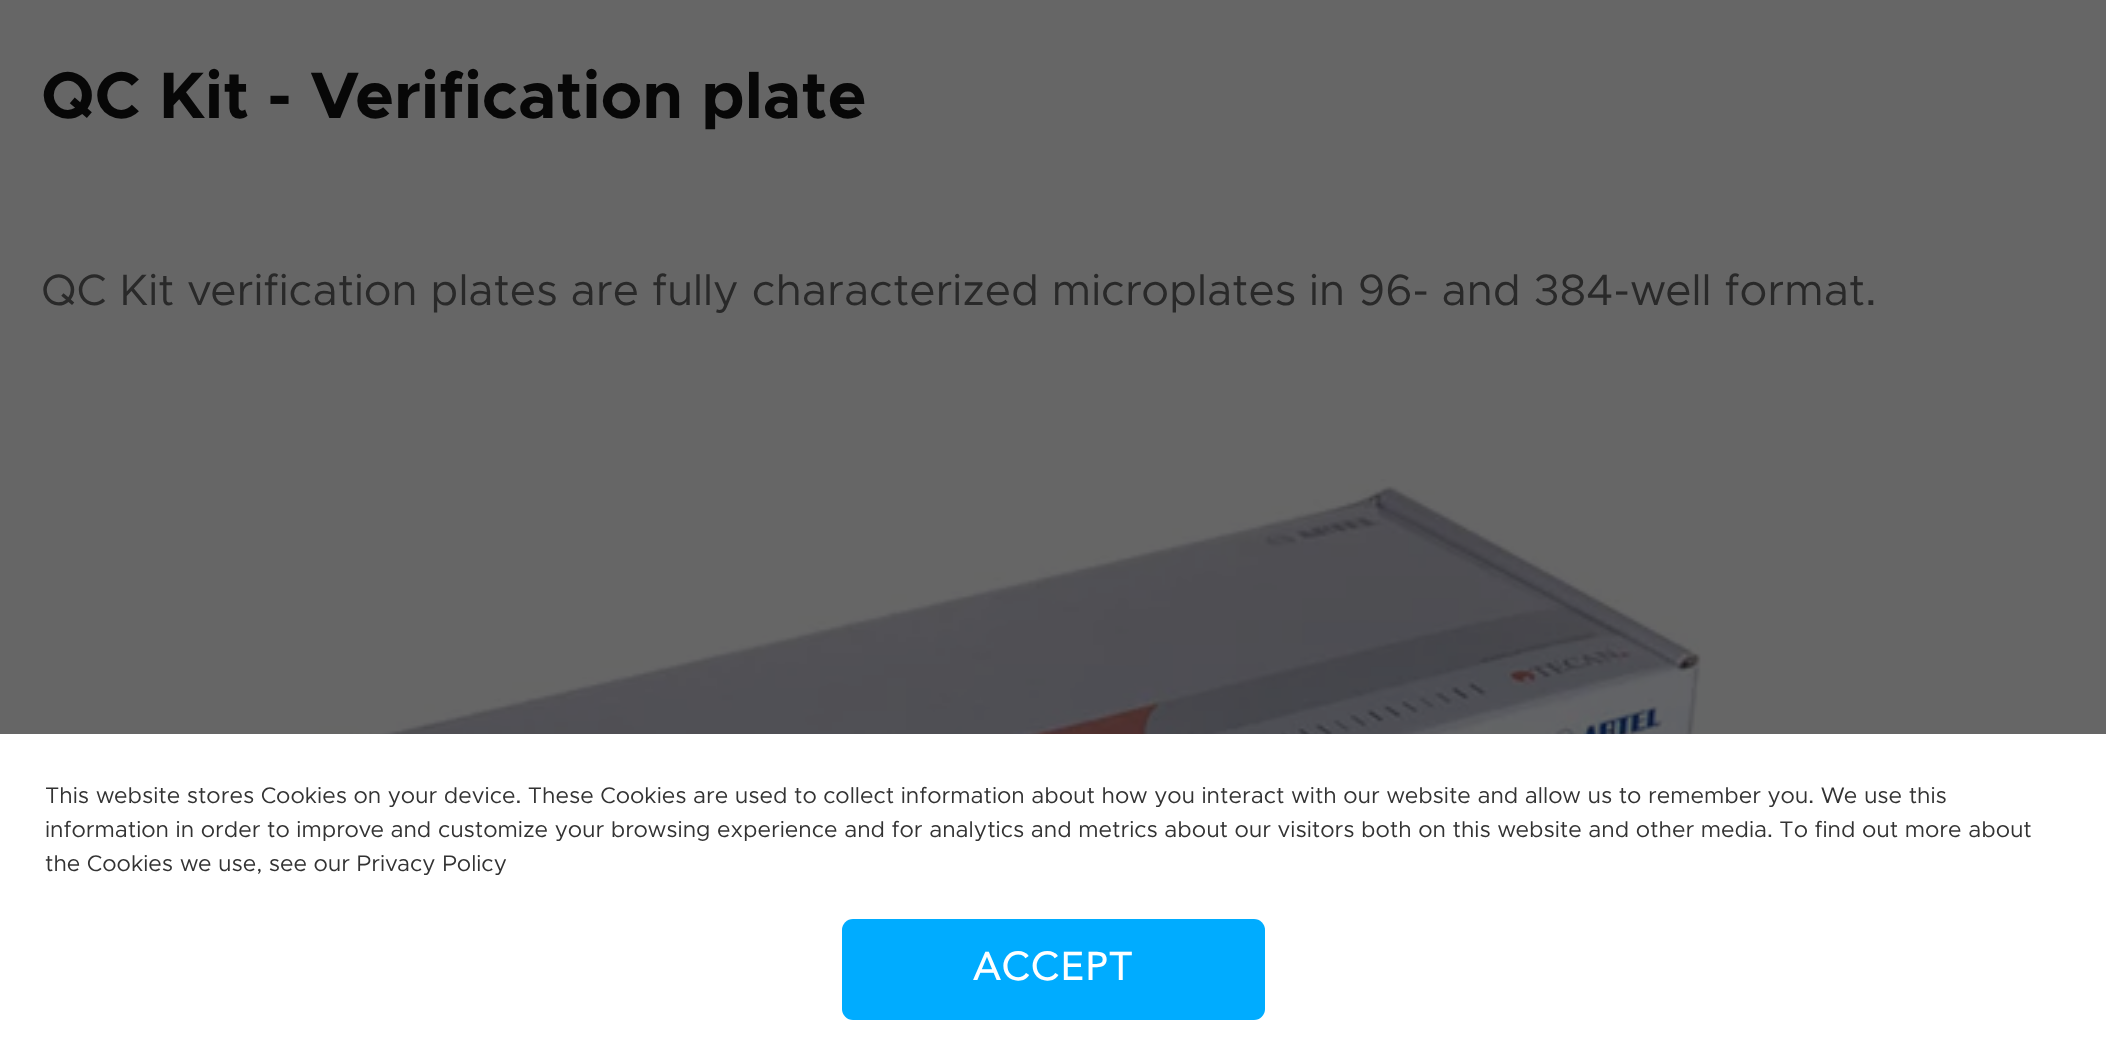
<!DOCTYPE html>
<meta charset="utf-8">
<style>body { margin: 0 } canvas { display: block }</style>
<canvas id="canvas" width="2106" height="1063"></canvas>
<script type="module">
  const canvas = document.getElementById("canvas");
  const g = canvas.getContext("2d");
  g.miterLimit = 4;
  g.fontKerning = "normal";
  function drawText(s, x, y, [font, color]) {
    g.font = font;
    g.fillStyle = color;
    g.fillText(s, x, y);
  }
  function fillBox(x, y, w, h, color) {
    g.fillStyle = color;
    g.fillRect(x, y, w, h);
  }
  function fillRounded(x, y, w, h, r, color) {
    g.fillStyle = color;
    g.beginPath();
    g.roundRect(x, y, w, h, r);
    g.fill();
  }
  async function drawPicture(src, x, y, w, h) {
    const img = new Image();
    img.src = src;
    await img.decode();
    g.drawImage(img, x, y, w, h);
  }

  const s1 = ["bold 66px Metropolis", "#070707"];
  const s2 = ["44px Metropolis", "#292929"];
  const s3 = ["22.7px Metropolis", "#333333"];
  const s4 = ["bold 38.5px 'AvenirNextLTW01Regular'", "#FFFFFF"];

  fillBox(0, 0, 2106, 1063, "#666666");
  drawText("QC Kit - Verification plate", 41, 118, s1);
  drawText("QC Kit verification plates are fully characterized microplates in 96- and 384-well format.", 41, 305, s2);
  await drawPicture("pic1.png", 222, 479, 1541, 255);
  fillBox(0, 734, 2106, 329, "#FFFFFF");
  drawText("This website stores Cookies on your device. These Cookies are used to collect information about how you interact with our website and allow us to remember you. We use this", 45, 803, s3);
  drawText("information in order to improve and customize your browsing experience and for analytics and metrics about our visitors both on this website and other media. To find out more about", 45, 837, s3);
  drawText("the Cookies we use, see our Privacy Policy", 45, 871, s3);
  fillRounded(842, 919, 423, 101, 11, "#00ACFF");
  g.letterSpacing = "2px";
  drawText("ACCEPT", 973, 980, s4);
</script>
